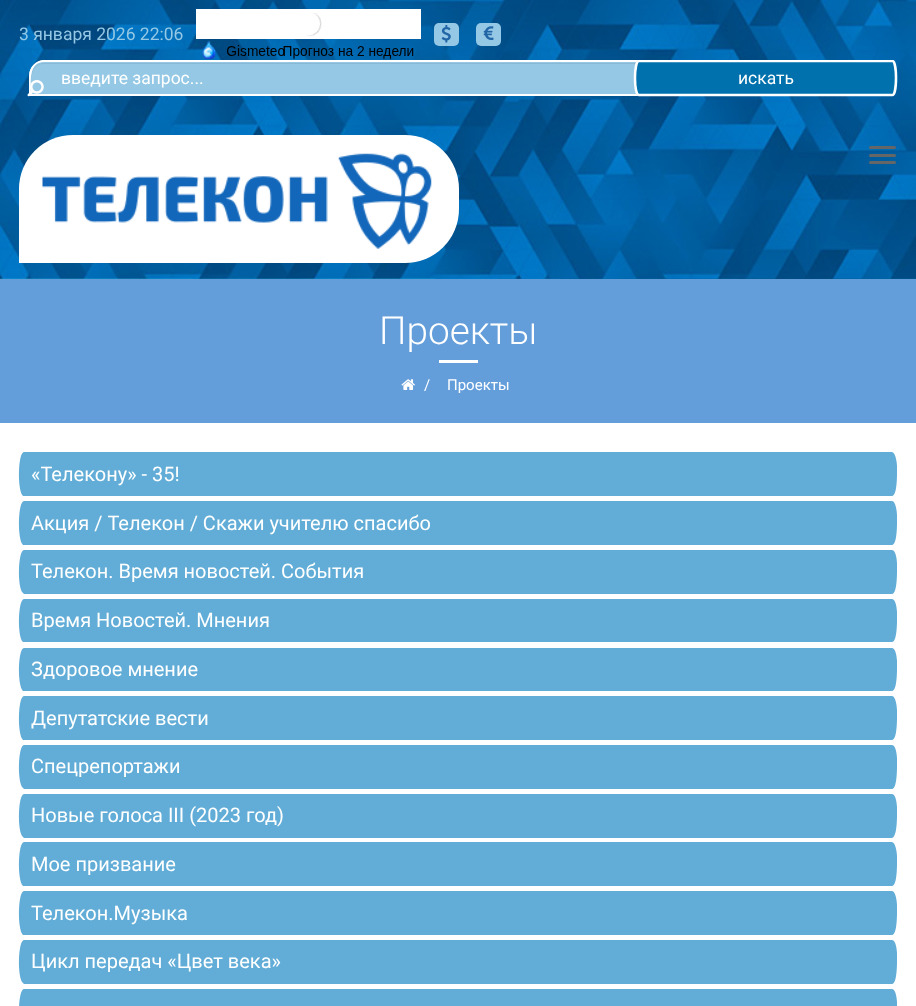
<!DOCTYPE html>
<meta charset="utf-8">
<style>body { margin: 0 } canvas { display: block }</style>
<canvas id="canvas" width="916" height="1006"></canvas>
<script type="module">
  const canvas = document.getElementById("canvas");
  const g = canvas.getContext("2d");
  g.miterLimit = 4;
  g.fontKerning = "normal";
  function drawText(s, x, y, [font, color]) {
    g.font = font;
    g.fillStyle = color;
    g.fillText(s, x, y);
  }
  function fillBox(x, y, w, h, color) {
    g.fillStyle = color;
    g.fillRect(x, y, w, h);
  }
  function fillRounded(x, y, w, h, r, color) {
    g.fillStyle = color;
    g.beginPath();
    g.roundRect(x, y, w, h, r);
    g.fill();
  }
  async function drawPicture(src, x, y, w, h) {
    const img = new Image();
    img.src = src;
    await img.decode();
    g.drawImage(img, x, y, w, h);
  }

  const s1 = ["17.5px Roboto", "#94C8E5"];
  const s2 = ["17.5px Roboto", "#FFFFFF"];
  const s3 = ["300 38.75px Roboto", "#FFFFFF"];
  const s4 = ["15px Roboto", "#FFFFFF"];
  const s5 = ["20px Roboto", "#FFFFFF"];

  fillBox(0, 0, 916, 1006, "#FFFFFF");
  await drawPicture("pic1.png", 0, 278, 916, 1);
  await drawPicture("pic2.png", 0, 0, 916, 279);
  drawText("3 января 2026 22:06", 19, 40, s1);
  fillBox(196, 9, 225, 30, "#FFFFFF");
  await drawPicture("pic3.png", 306, 13, 16, 24);
  await drawPicture("pic4.png", 202, 40, 15, 19);
  await drawPicture("pic5.png", 227, 45, 58, 11);
  await drawPicture("pic6.png", 283, 46, 131, 13);
  fillRounded(434, 23, 25, 23, 5, "#94C8E5");
  await drawPicture("pic7.png", 441, 25, 10, 18);
  fillRounded(476, 23, 25, 23, 5, "#94C8E5");
  await drawPicture("pic8.png", 483, 26, 11, 14);
  g.beginPath();
  g.roundRect(29, 60, 615, 36, [16, 0, 0, 0]);
  g.fill();
  g.fillStyle = "#89B9D4";
  g.beginPath();
  g.moveTo(44, 64);
  g.lineTo(644, 64);
  g.lineTo(644, 63);
  g.lineTo(45, 63);
  g.bezierCurveTo(37, 63, 31, 69, 31, 77);
  g.lineTo(31, 79);
  g.bezierCurveTo(32, 71, 35, 64, 44, 64);
  g.closePath();
  g.fill();
  g.fillStyle = "#FFFFFF";
  g.beginPath();
  g.moveTo(44, 60);
  g.lineTo(644, 60);
  g.lineTo(644, 96);
  g.lineTo(29, 96);
  g.lineTo(29, 76);
  g.bezierCurveTo(29, 67, 36, 60, 44, 60);
  g.closePath();
  g.moveTo(44, 62);
  g.lineTo(644, 62);
  g.lineTo(644, 94);
  g.lineTo(31, 94);
  g.bezierCurveTo(31, 83, 28, 62, 44, 62);
  g.closePath();
  g.fill("evenodd");
  await drawPicture("pic9.png", 27, 80, 17, 17);
  drawText("введите запрос...", 61, 84, s2);
  g.fillStyle = "#0071AC";
  g.beginPath();
  g.moveTo(639, 60);
  g.lineTo(892, 60);
  g.bezierCurveTo(895, 60, 898, 68, 898, 78);
  g.bezierCurveTo(898, 88, 895, 96, 892, 96);
  g.lineTo(639, 96);
  g.bezierCurveTo(636, 96, 634, 88, 634, 78);
  g.bezierCurveTo(634, 68, 636, 60, 639, 60);
  g.closePath();
  g.fill();
  g.save();
  g.beginPath();
  g.rect(19, 60, 879, 51);
  g.clip();
  g.beginPath();
  g.moveTo(639, 61);
  g.lineTo(892.5, 61);
  g.bezierCurveTo(894.5, 61, 896, 69, 896, 78);
  g.bezierCurveTo(896, 87.5, 894.5, 95, 892.5, 95);
  g.lineTo(639, 95);
  g.bezierCurveTo(636.5, 95, 635, 87.5, 635, 78);
  g.bezierCurveTo(635, 69, 636.5, 61, 639, 61);
  g.closePath();
  g.strokeStyle = "#FFFFFF";
  g.lineWidth = 2.5;
  g.stroke();
  g.restore();
  drawText("искать", 738, 84, s2);
  g.beginPath();
  g.roundRect(19, 135, 440, 128, [54, 54, 54, 0]);
  g.fill();
  await drawPicture("pic10.png", 42, 153, 390, 96);
  fillRounded(869, 146, 27, 3, 1.5, "#666666");
  fillRounded(869, 154, 27, 3, 1.5, "#666666");
  fillRounded(869, 161, 27, 3, 1.5, "#666666");
  fillBox(0, 279, 916, 144, "#639EDB");
  drawText("Проекты", 379, 344, s3);
  fillBox(439, 360, 39, 3, "#FFFFFF");
  await drawPicture("pic11.png", 401, 379, 14, 11);
  drawText("/", 424, 390, s4);
  drawText("Проекты", 447, 390, s4);
  g.fillStyle = "#61ADD7";
  g.beginPath();
  g.moveTo(24, 452);
  g.lineTo(892, 452);
  g.bezierCurveTo(896, 453, 897, 464, 897, 466);
  g.bezierCurveTo(897, 469, 898, 496, 892, 496);
  g.lineTo(24, 496);
  g.lineTo(23, 496);
  g.bezierCurveTo(17, 490, 18, 452, 24, 452);
  g.closePath();
  g.fill();
  drawText("«Телекону» - 35!", 31, 481, s5);
  g.fillStyle = "#61ADD7";
  g.beginPath();
  g.moveTo(24, 501);
  g.lineTo(892, 501);
  g.bezierCurveTo(896, 501, 897, 513, 897, 515);
  g.bezierCurveTo(897, 518, 898, 545, 892, 545);
  g.lineTo(24, 545);
  g.lineTo(23, 545);
  g.bezierCurveTo(17, 539, 18, 501, 24, 501);
  g.closePath();
  g.fill();
  drawText("Акция / Телекон / Скажи учителю спасибо", 31, 530, s5);
  g.fillStyle = "#61ADD7";
  g.beginPath();
  g.moveTo(24, 550);
  g.lineTo(892, 550);
  g.bezierCurveTo(896, 550, 897, 561, 897, 563);
  g.bezierCurveTo(897, 567, 898, 594, 892, 594);
  g.lineTo(24, 594);
  g.lineTo(23, 593);
  g.bezierCurveTo(17, 588, 18, 550, 24, 550);
  g.closePath();
  g.fill();
  drawText("Телекон. Время новостей. События", 31, 578, s5);
  g.fillStyle = "#61ADD7";
  g.beginPath();
  g.moveTo(24, 599);
  g.lineTo(892, 599);
  g.bezierCurveTo(896, 599, 897, 610, 897, 612);
  g.bezierCurveTo(897, 616, 898, 642, 892, 642);
  g.lineTo(24, 642);
  g.lineTo(23, 642);
  g.bezierCurveTo(17, 637, 18, 599, 24, 599);
  g.closePath();
  g.fill();
  drawText("Время Новостей. Мнения", 31, 627, s5);
  g.fillStyle = "#61ADD7";
  g.beginPath();
  g.moveTo(24, 648);
  g.lineTo(892, 648);
  g.bezierCurveTo(896, 648, 897, 659, 897, 661);
  g.bezierCurveTo(897, 664, 898, 691, 892, 691);
  g.lineTo(24, 691);
  g.lineTo(23, 691);
  g.bezierCurveTo(17, 685, 18, 648, 24, 648);
  g.closePath();
  g.fill();
  drawText("Здоровое мнение", 31, 676, s5);
  g.fillStyle = "#61ADD7";
  g.beginPath();
  g.moveTo(24, 696);
  g.lineTo(892, 696);
  g.bezierCurveTo(896, 696, 897, 708, 897, 710);
  g.bezierCurveTo(897, 713, 898, 740, 892, 740);
  g.lineTo(24, 740);
  g.lineTo(23, 740);
  g.bezierCurveTo(17, 734, 18, 696, 24, 696);
  g.closePath();
  g.fill();
  drawText("Депутатские вести", 31, 725, s5);
  g.fillStyle = "#61ADD7";
  g.beginPath();
  g.moveTo(24, 745);
  g.lineTo(892, 745);
  g.bezierCurveTo(896, 745, 897, 756, 897, 758);
  g.bezierCurveTo(897, 762, 898, 789, 892, 789);
  g.lineTo(24, 789);
  g.lineTo(23, 788);
  g.bezierCurveTo(17, 783, 18, 745, 24, 745);
  g.closePath();
  g.fill();
  drawText("Спецрепортажи", 31, 773, s5);
  g.fillStyle = "#61ADD7";
  g.beginPath();
  g.moveTo(24, 794);
  g.lineTo(892, 794);
  g.bezierCurveTo(896, 794, 897, 805, 897, 807);
  g.bezierCurveTo(897, 811, 898, 837, 892, 838);
  g.lineTo(24, 838);
  g.lineTo(23, 837);
  g.bezierCurveTo(17, 832, 18, 794, 24, 794);
  g.closePath();
  g.fill();
  drawText("Новые голоса III (2023 год)", 31, 822, s5);
  g.fillStyle = "#61ADD7";
  g.beginPath();
  g.moveTo(24, 842);
  g.lineTo(892, 842);
  g.bezierCurveTo(896, 843, 897, 854, 897, 856);
  g.bezierCurveTo(897, 859, 898, 886, 892, 886);
  g.lineTo(24, 886);
  g.lineTo(23, 886);
  g.bezierCurveTo(17, 880, 18, 842, 24, 842);
  g.closePath();
  g.fill();
  drawText("Мое призвание", 31, 871, s5);
  g.fillStyle = "#61ADD7";
  g.beginPath();
  g.moveTo(24, 891);
  g.lineTo(892, 891);
  g.bezierCurveTo(896, 891, 897, 903, 897, 905);
  g.bezierCurveTo(897, 908, 898, 935, 892, 935);
  g.lineTo(24, 935);
  g.lineTo(23, 935);
  g.bezierCurveTo(17, 929, 18, 891, 24, 891);
  g.closePath();
  g.fill();
  drawText("Телекон.Музыка", 31, 920, s5);
  g.fillStyle = "#61ADD7";
  g.beginPath();
  g.moveTo(24, 940);
  g.lineTo(892, 940);
  g.bezierCurveTo(896, 940, 897, 951, 897, 953);
  g.bezierCurveTo(897, 957, 898, 984, 892, 984);
  g.lineTo(24, 984);
  g.lineTo(23, 983);
  g.bezierCurveTo(17, 978, 18, 940, 24, 940);
  g.closePath();
  g.fill();
  drawText("Цикл передач «Цвет века»", 31, 968, s5);
  g.fillStyle = "#61ADD7";
  g.beginPath();
  g.moveTo(24, 989);
  g.lineTo(892, 989);
  g.bezierCurveTo(896, 989, 897, 1000, 897, 1002);
  g.bezierCurveTo(897, 1006, 898, 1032, 892, 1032);
  g.lineTo(24, 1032);
  g.lineTo(23, 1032);
  g.bezierCurveTo(17, 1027, 18, 989, 24, 989);
  g.closePath();
  g.fill();
</script>
